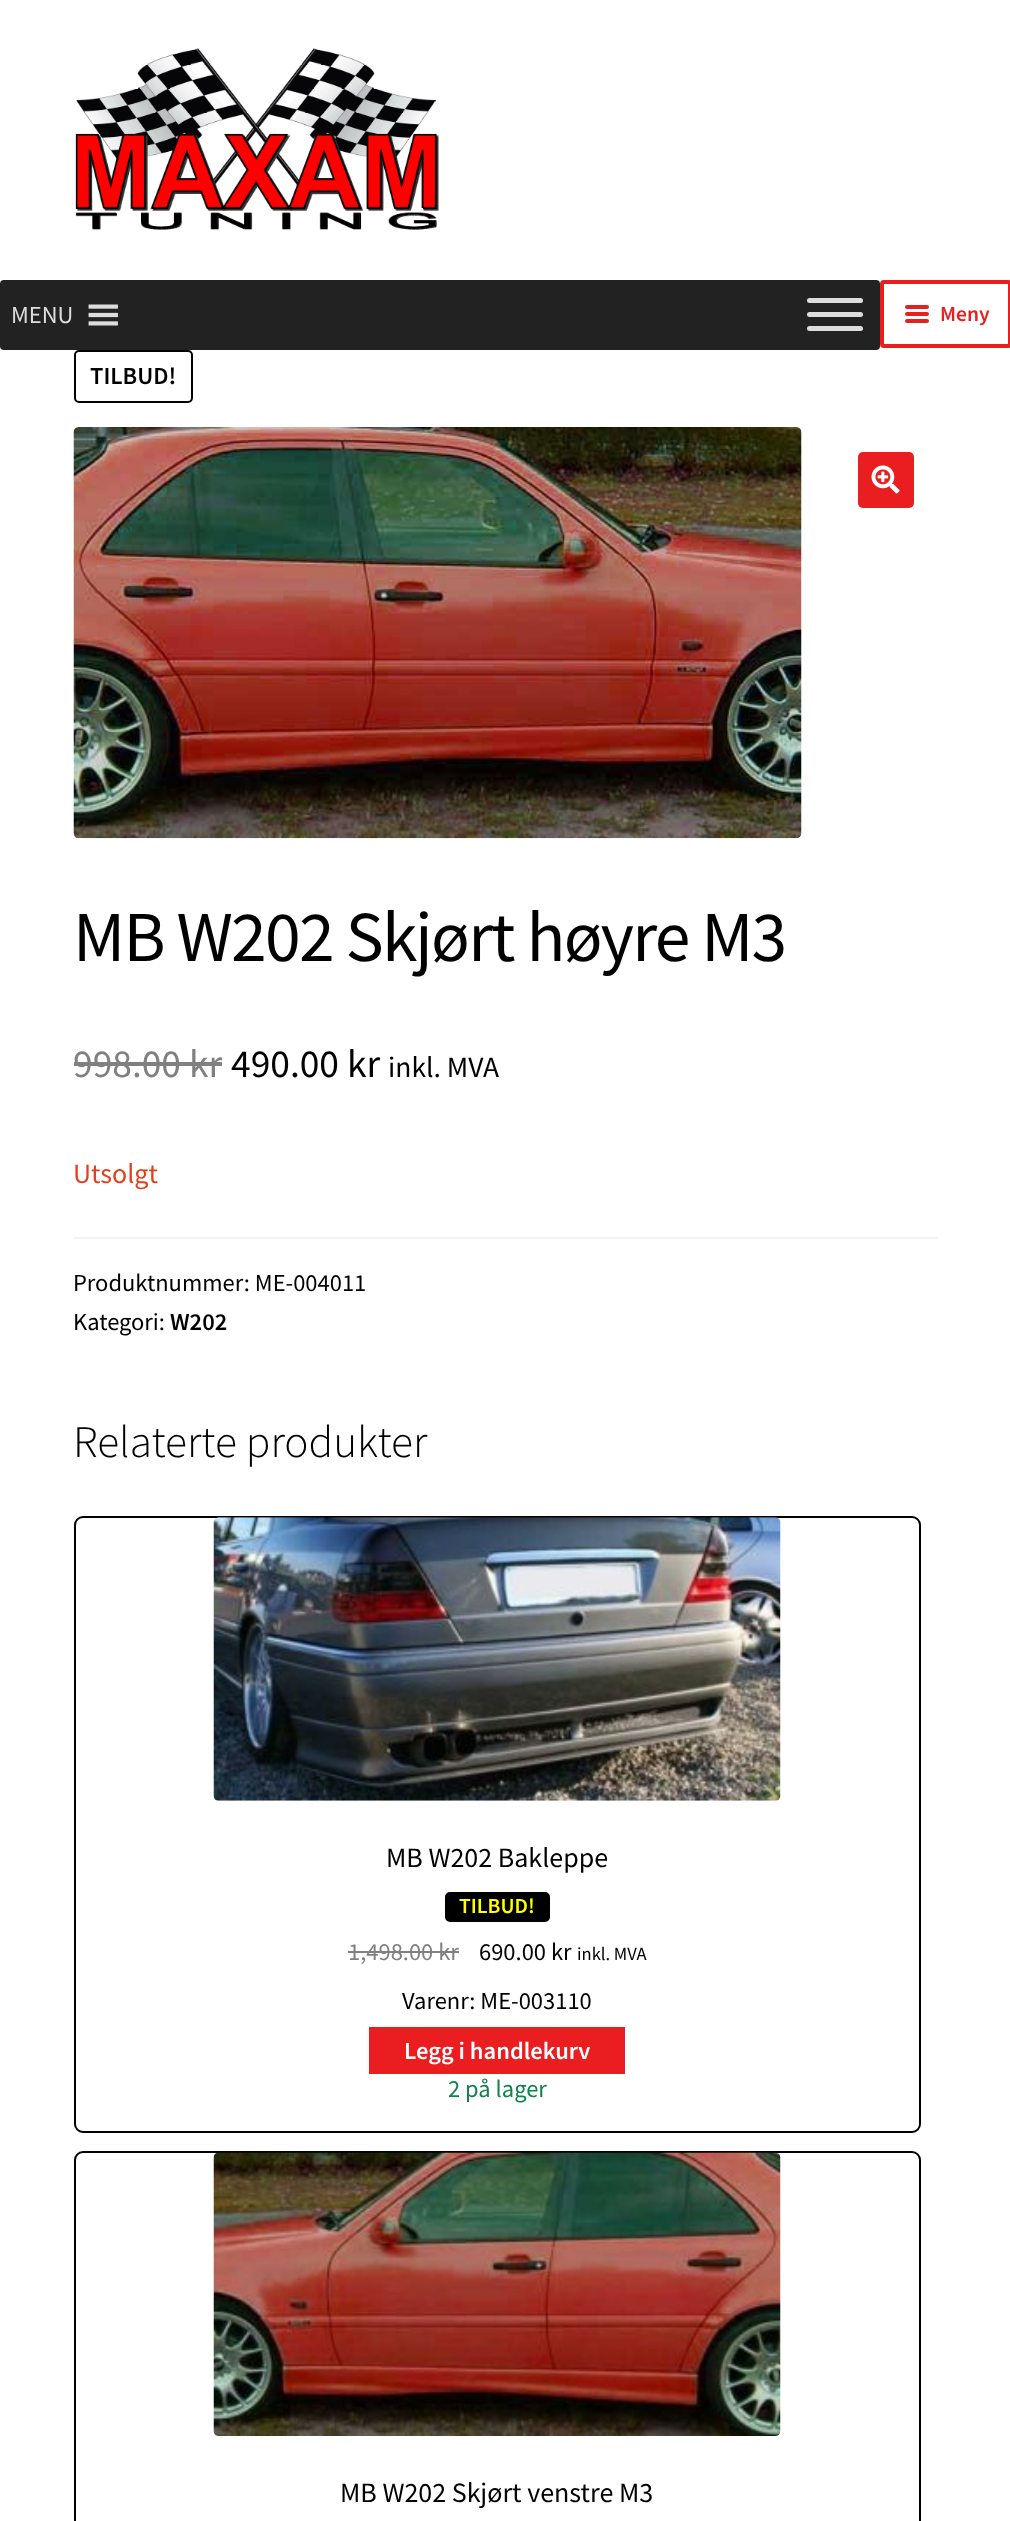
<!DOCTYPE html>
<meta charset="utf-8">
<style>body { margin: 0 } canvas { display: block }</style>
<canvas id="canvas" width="1010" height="2521"></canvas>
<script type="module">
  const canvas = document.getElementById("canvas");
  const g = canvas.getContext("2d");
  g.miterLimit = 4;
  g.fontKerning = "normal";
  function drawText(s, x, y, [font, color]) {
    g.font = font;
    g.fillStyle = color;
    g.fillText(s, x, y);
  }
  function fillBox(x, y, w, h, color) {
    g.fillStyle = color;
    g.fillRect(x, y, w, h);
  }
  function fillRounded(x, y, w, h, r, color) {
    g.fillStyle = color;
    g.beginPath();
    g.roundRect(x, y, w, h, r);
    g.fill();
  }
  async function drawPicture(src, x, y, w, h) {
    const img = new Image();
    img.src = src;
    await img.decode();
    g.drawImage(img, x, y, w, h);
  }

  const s1 = ["24.5px Source Sans Pro", "#DDDDDD"];
  const s2 = ["600 21.5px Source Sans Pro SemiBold", "#EA1E21"];
  const s3 = ["600 24.5px Source Sans Pro SemiBold", "#000000"];
  const s4 = ["71.75px Source Sans Pro", "#000000"];
  const s5 = ["39.5px Source Sans Pro", "#808080"];
  const s6 = ["39.5px Source Sans Pro", "#000000"];
  const s7 = ["29.5px Source Sans Pro", "#000000"];
  const s8 = ["28px Source Sans Pro", "#E2401C"];
  const s9 = ["24.5px Source Sans Pro", "#000000"];
  const s10 = ["300 45.25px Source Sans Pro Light", "#000000"];
  const s11 = ["28px Source Sans Pro", "#000000"];
  const s12 = ["600 21.5px Source Sans Pro SemiBold", "#FFFF00"];
  const s13 = ["24.5px Source Sans Pro", "#808080"];
  const s14 = ["18.5px Source Sans Pro", "#000000"];
  const s15 = ["600 24.5px Source Sans Pro SemiBold", "#FFFFFF"];
  const s16 = ["24.5px Source Sans Pro", "#0F834D"];

  fillBox(0, 0, 1010, 2521, "#FFFFFF");
  await drawPicture("pic1.png", 75, 48, 364, 182);
  fillRounded(0, 280, 880, 70, 4, "#222222");
  drawText("MENU", 11, 323, s1);
  await drawPicture("pic2.png", 88, 304, 30, 22);
  fillRounded(807, 298, 56, 5, 2.5, "#DDDDDD");
  fillRounded(807, 312, 56, 5, 2.5, "#DDDDDD");
  fillRounded(807, 326, 56, 5, 2.5, "#DDDDDD");
  g.beginPath();
  g.roundRect(882, 282, 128, 64, 2);
  g.strokeStyle = "#EA1E21";
  g.lineWidth = 4;
  g.stroke();
  fillRounded(905, 305, 24, 4, 2, "#EA1E21");
  fillRounded(905, 312, 24, 4, 2, "#EA1E21");
  drawText("Meny", 940, 321, s2);
  fillRounded(905, 319, 24, 4, 2, "#EA1E21");
  g.beginPath();
  g.roundRect(75, 351, 117, 51, 4);
  g.strokeStyle = "#000000";
  g.lineWidth = 2;
  g.stroke();
  drawText("TILBUD!", 90, 384, s3);
  await drawPicture("pic3.png", 73, 427, 729, 412);
  fillRounded(858, 452, 56, 56, 5, "#EA1E21");
  await drawPicture("pic4.png", 871, 465, 29, 29);
  g.letterSpacing = "-1.75px";
  drawText("MB W202 Skjørt høyre M3", 73, 961, s4);
  g.letterSpacing = "0px";
  drawText("998.00 kr", 73, 1077, s5);
  fillBox(74, 1062, 148, 4, "#808080");
  drawText("490.00 kr", 231, 1077, s6);
  drawText("inkl. MVA", 388, 1077, s7);
  drawText("Utsolgt", 73, 1183, s8);
  fillBox(74, 1237, 864, 2, "#F2F2F2");
  drawText("Produktnummer: ME-004011", 73, 1291, s9);
  drawText("Kategori:", 73, 1330, s9);
  drawText("W202", 170, 1330, s3);
  drawText("Relaterte produkter", 73, 1457, s10);
  g.beginPath();
  g.roundRect(75, 1517, 845, 615, 8);
  g.stroke();
  await drawPicture("pic5.png", 213, 1517, 568, 284);
  drawText("MB W202 Bakleppe", 386, 1867, s11);
  g.beginPath();
  g.roundRect(446, 1893, 103, 28, 4);
  g.fill();
  g.stroke();
  drawText("TILBUD!", 459, 1913, s12);
  drawText("1,498.00 kr", 348, 1960, s13);
  fillBox(348, 1951, 111, 2, "#808080");
  drawText("690.00 kr", 479, 1960, s9);
  drawText("inkl. MVA", 577, 1960, s14);
  drawText("Varenr: ME-003110", 402, 2009, s9);
  fillBox(369, 2027, 256, 47, "#EA1E21");
  drawText("Legg i handlekurv", 404, 2059, s15);
  drawText("2 på lager", 448, 2097, s16);
  g.beginPath();
  g.roundRect(75, 2152, 845, 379, 8);
  g.stroke();
  await drawPicture("pic6.png", 213, 2152, 568, 284);
  drawText("MB W202 Skjørt venstre M3", 340, 2502, s11);
</script>
